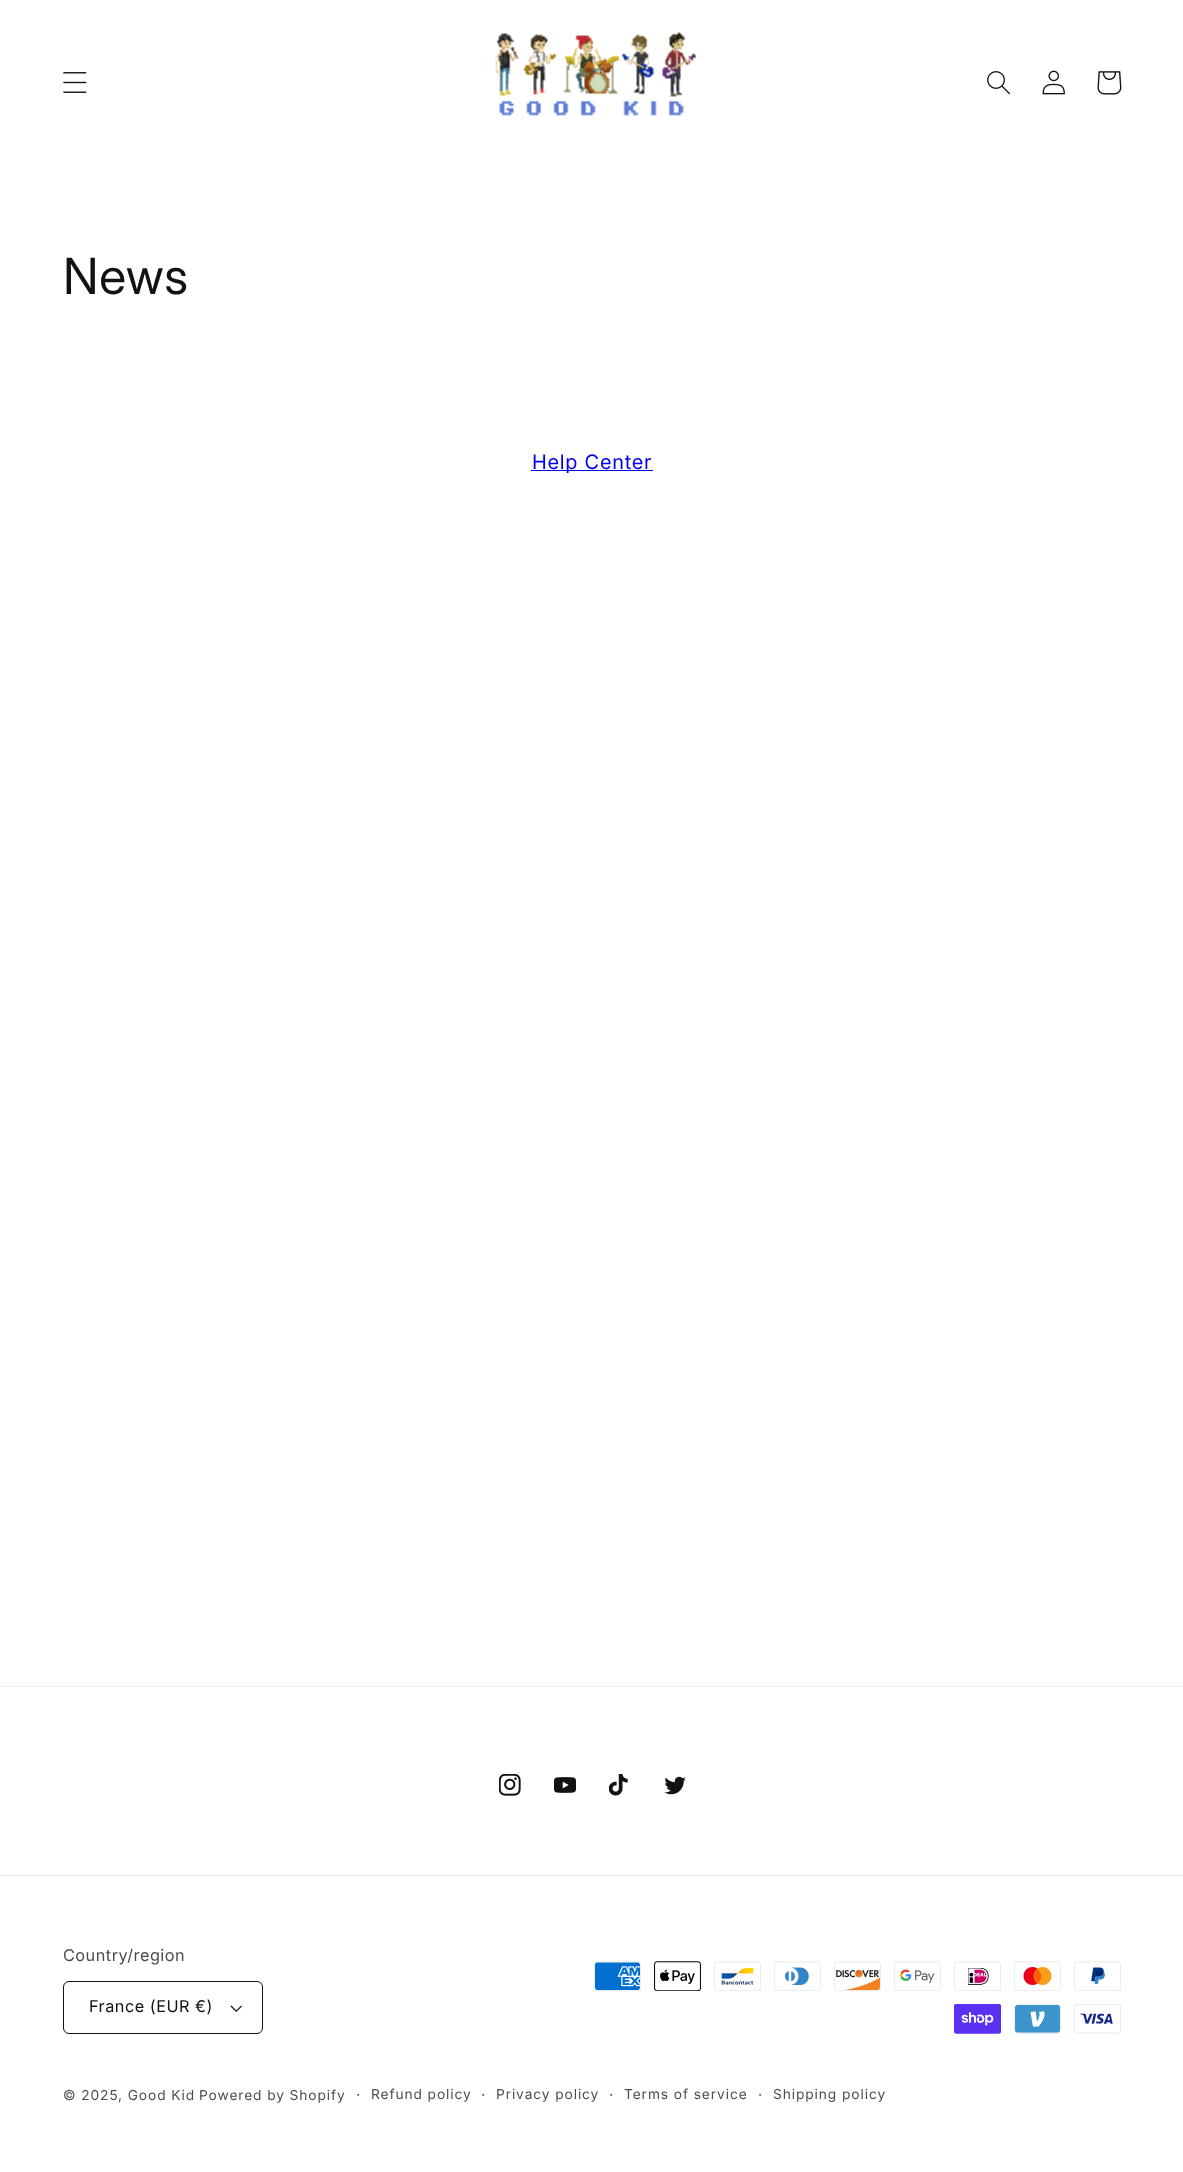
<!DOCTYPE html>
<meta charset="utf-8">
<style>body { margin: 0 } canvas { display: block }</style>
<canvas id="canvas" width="1183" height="2172"></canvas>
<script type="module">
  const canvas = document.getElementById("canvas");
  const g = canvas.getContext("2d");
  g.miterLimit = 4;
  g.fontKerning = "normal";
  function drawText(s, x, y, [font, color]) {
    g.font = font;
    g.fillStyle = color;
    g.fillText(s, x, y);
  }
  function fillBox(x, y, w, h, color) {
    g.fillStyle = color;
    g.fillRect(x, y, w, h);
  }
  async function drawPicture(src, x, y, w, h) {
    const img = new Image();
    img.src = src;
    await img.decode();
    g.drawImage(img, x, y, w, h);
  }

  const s1 = ["50px Inter", "#121212"];
  const s2 = ["20px 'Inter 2'", "#0000EE"];
  const s3 = ["16.25px 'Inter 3'", "#4D4D4D"];
  const s4 = ["16.25px 'Inter 3'", "#121212"];
  const s5 = ["13.75px 'Inter 3'", "#4D4D4D"];
  const s6 = ["15px 'Inter 3'", "#4D4D4D"];

  fillBox(0, 0, 1183, 2172, "#FFFFFF");
  await drawPicture("pic1.png", 63, 72, 24, 21);
  await drawPicture("pic2.png", 495, 32, 202, 84);
  await drawPicture("pic3.png", 987, 71, 23, 24);
  await drawPicture("pic4.png", 1042, 70, 23, 25);
  await drawPicture("pic5.png", 1097, 71, 25, 24);
  g.letterSpacing = "0.75px";
  drawText("News", 63, 294, s1);
  fillBox(531, 470, 122, 1, "#0000EE");
  drawText("Help Center", 532, 469, s2);
  fillBox(0, 1686, 1183, 1, "#ECECEC");
  await drawPicture("pic6.png", 499, 1774, 22, 22);
  await drawPicture("pic7.png", 554, 1777, 22, 16);
  await drawPicture("pic8.png", 609, 1774, 19, 22);
  await drawPicture("pic9.png", 664, 1776, 22, 19);
  fillBox(0, 1875, 1183, 1, "#ECECEC");
  g.letterSpacing = "0.5px";
  drawText("Country/region", 63, 1961, s3);
  await drawPicture("pic10.png", 230, 2005, 12, 7);
  g.beginPath();
  g.roundRect(63.5, 1981.5, 199, 52, 5.5);
  g.strokeStyle = "#121212";
  g.stroke();
  drawText("France (EUR €)", 89, 2012, s4);
  await drawPicture("pic11.png", 594, 1961, 47, 30);
  await drawPicture("pic12.png", 654, 1961, 47, 30);
  await drawPicture("pic13.png", 714, 1961, 47, 30);
  await drawPicture("pic14.png", 774, 1961, 47, 30);
  await drawPicture("pic15.png", 834, 1961, 47, 30);
  await drawPicture("pic16.png", 894, 1961, 47, 30);
  await drawPicture("pic17.png", 954, 1961, 47, 30);
  await drawPicture("pic18.png", 1014, 1961, 47, 30);
  await drawPicture("pic19.png", 1074, 1961, 47, 30);
  await drawPicture("pic20.png", 954, 2004, 47, 30);
  await drawPicture("pic21.png", 1014, 2004, 47, 30);
  await drawPicture("pic22.png", 1074, 2004, 47, 30);
  g.letterSpacing = "0.9px";
  drawText("© 2025, Good Kid", 63, 2100, s5);
  drawText("Powered by Shopify", 199, 2100, s5);
  drawText("·", 356, 2100, s6);
  drawText("Refund policy", 371, 2099, s5);
  drawText("·", 481, 2100, s6);
  drawText("Privacy policy", 496, 2099, s5);
  drawText("·", 609, 2100, s6);
  drawText("Terms of service", 624, 2099, s5);
  drawText("·", 758, 2100, s6);
  drawText("Shipping policy", 773, 2099, s5);
</script>
